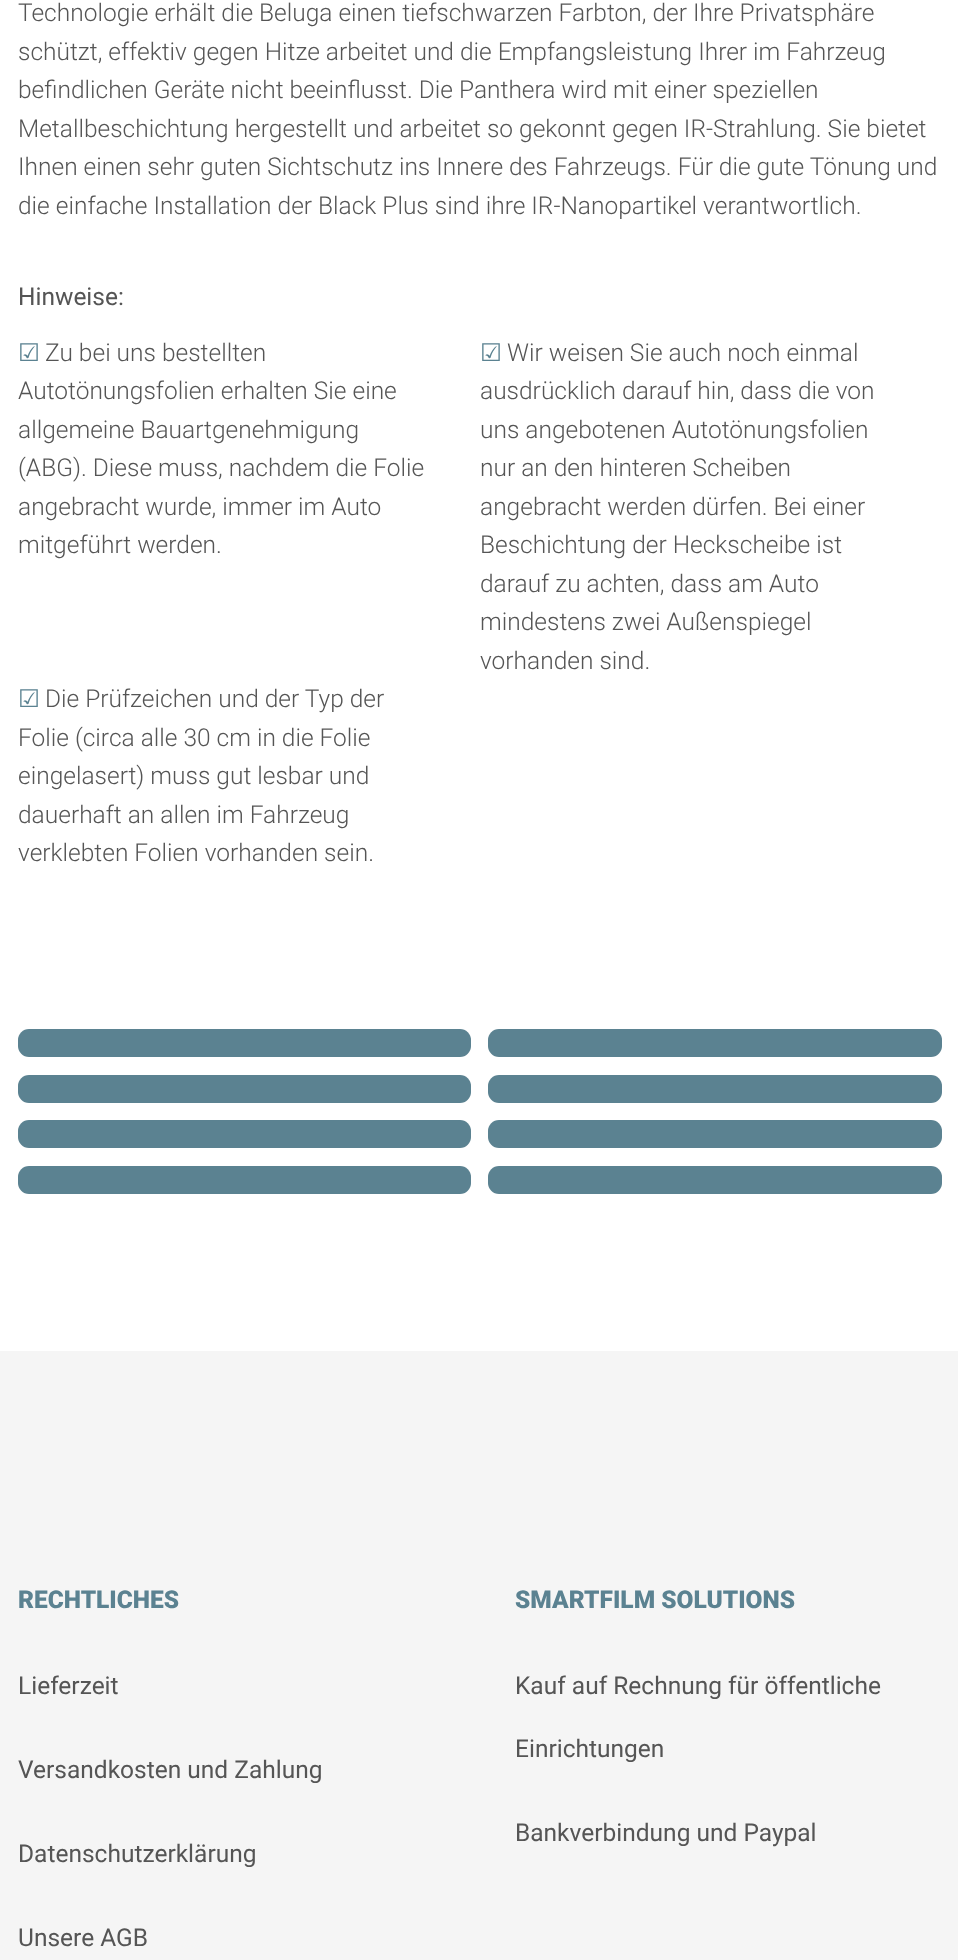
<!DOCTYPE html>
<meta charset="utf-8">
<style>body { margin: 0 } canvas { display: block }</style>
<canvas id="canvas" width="958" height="1960"></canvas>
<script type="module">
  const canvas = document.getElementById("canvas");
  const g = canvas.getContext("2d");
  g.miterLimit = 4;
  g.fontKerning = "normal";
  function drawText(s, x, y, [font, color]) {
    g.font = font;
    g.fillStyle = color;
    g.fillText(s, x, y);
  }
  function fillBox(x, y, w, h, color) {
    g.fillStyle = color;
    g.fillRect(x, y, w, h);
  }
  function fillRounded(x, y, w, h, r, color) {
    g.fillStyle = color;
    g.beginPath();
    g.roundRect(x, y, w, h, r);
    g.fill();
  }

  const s1 = ["300 24.5px Roboto", "#555555"];
  const s2 = ["24.5px Roboto", "#555555"];
  const s3 = ["24.5px DejaVu Sans", "#5B8291"];
  const s4 = ["900 24.5px Roboto", "#5B8291"];

  fillBox(0, 0, 958, 1960, "#FFFFFF");
  drawText("Technologie erhält die Beluga einen tiefschwarzen Farbton, der Ihre Privatsphäre", 18, 21, s1);
  drawText("schützt, effektiv gegen Hitze arbeitet und die Empfangsleistung Ihrer im Fahrzeug", 18, 60, s1);
  drawText("befindlichen Geräte nicht beeinflusst. Die Panthera wird mit einer speziellen", 18, 98, s1);
  drawText("Metallbeschichtung hergestellt und arbeitet so gekonnt gegen IR-Strahlung. Sie bietet", 18, 137, s1);
  drawText("Ihnen einen sehr guten Sichtschutz ins Innere des Fahrzeugs. Für die gute Tönung und", 18, 175, s1);
  drawText("die einfache Installation der Black Plus sind ihre IR-Nanopartikel verantwortlich.", 18, 214, s1);
  drawText("Hinweise:", 18, 305, s2);
  drawText("☑", 18, 361, s3);
  drawText("Zu bei uns bestellten", 45, 361, s1);
  drawText("Autotönungsfolien erhalten Sie eine", 18, 399, s1);
  drawText("allgemeine Bauartgenehmigung", 18, 438, s1);
  drawText("(ABG). Diese muss, nachdem die Folie", 18, 476, s1);
  drawText("angebracht wurde, immer im Auto", 18, 515, s1);
  drawText("mitgeführt werden.", 18, 553, s1);
  drawText("☑", 480, 361, s3);
  drawText("Wir weisen Sie auch noch einmal", 507, 361, s1);
  drawText("ausdrücklich darauf hin, dass die von", 480, 399, s1);
  drawText("uns angebotenen Autotönungsfolien", 480, 438, s1);
  drawText("nur an den hinteren Scheiben", 480, 476, s1);
  drawText("angebracht werden dürfen. Bei einer", 480, 515, s1);
  drawText("Beschichtung der Heckscheibe ist", 480, 553, s1);
  drawText("darauf zu achten, dass am Auto", 480, 592, s1);
  drawText("mindestens zwei Außenspiegel", 480, 630, s1);
  drawText("vorhanden sind.", 480, 669, s1);
  drawText("☑", 18, 707, s3);
  drawText("Die Prüfzeichen und der Typ der", 45, 707, s1);
  drawText("Folie (circa alle 30 cm in die Folie", 18, 746, s1);
  drawText("eingelasert) muss gut lesbar und", 18, 784, s1);
  drawText("dauerhaft an allen im Fahrzeug", 18, 823, s1);
  drawText("verklebten Folien vorhanden sein.", 18, 861, s1);
  fillRounded(18, 1029, 453, 28, 11, "#5B8291");
  fillRounded(488, 1029, 454, 28, 11, "#5B8291");
  fillRounded(18, 1075, 453, 28, 11, "#5B8291");
  fillRounded(488, 1075, 454, 28, 11, "#5B8291");
  fillRounded(18, 1120, 453, 28, 11, "#5B8291");
  fillRounded(488, 1120, 454, 28, 11, "#5B8291");
  fillRounded(18, 1166, 453, 28, 11, "#5B8291");
  fillRounded(488, 1166, 454, 28, 11, "#5B8291");
  fillBox(0, 1351, 958, 609, "#F5F5F5");
  drawText("RECHTLICHES", 18, 1608, s4);
  drawText("Lieferzeit", 18, 1694, s2);
  drawText("Versandkosten und Zahlung", 18, 1778, s2);
  drawText("Datenschutzerklärung", 18, 1862, s2);
  drawText("Unsere AGB", 18, 1946, s2);
  drawText("SMARTFILM SOLUTIONS", 515, 1608, s4);
  drawText("Kauf auf Rechnung für öffentliche", 515, 1694, s2);
  drawText("Einrichtungen", 515, 1757, s2);
  drawText("Bankverbindung und Paypal", 515, 1841, s2);
</script>
